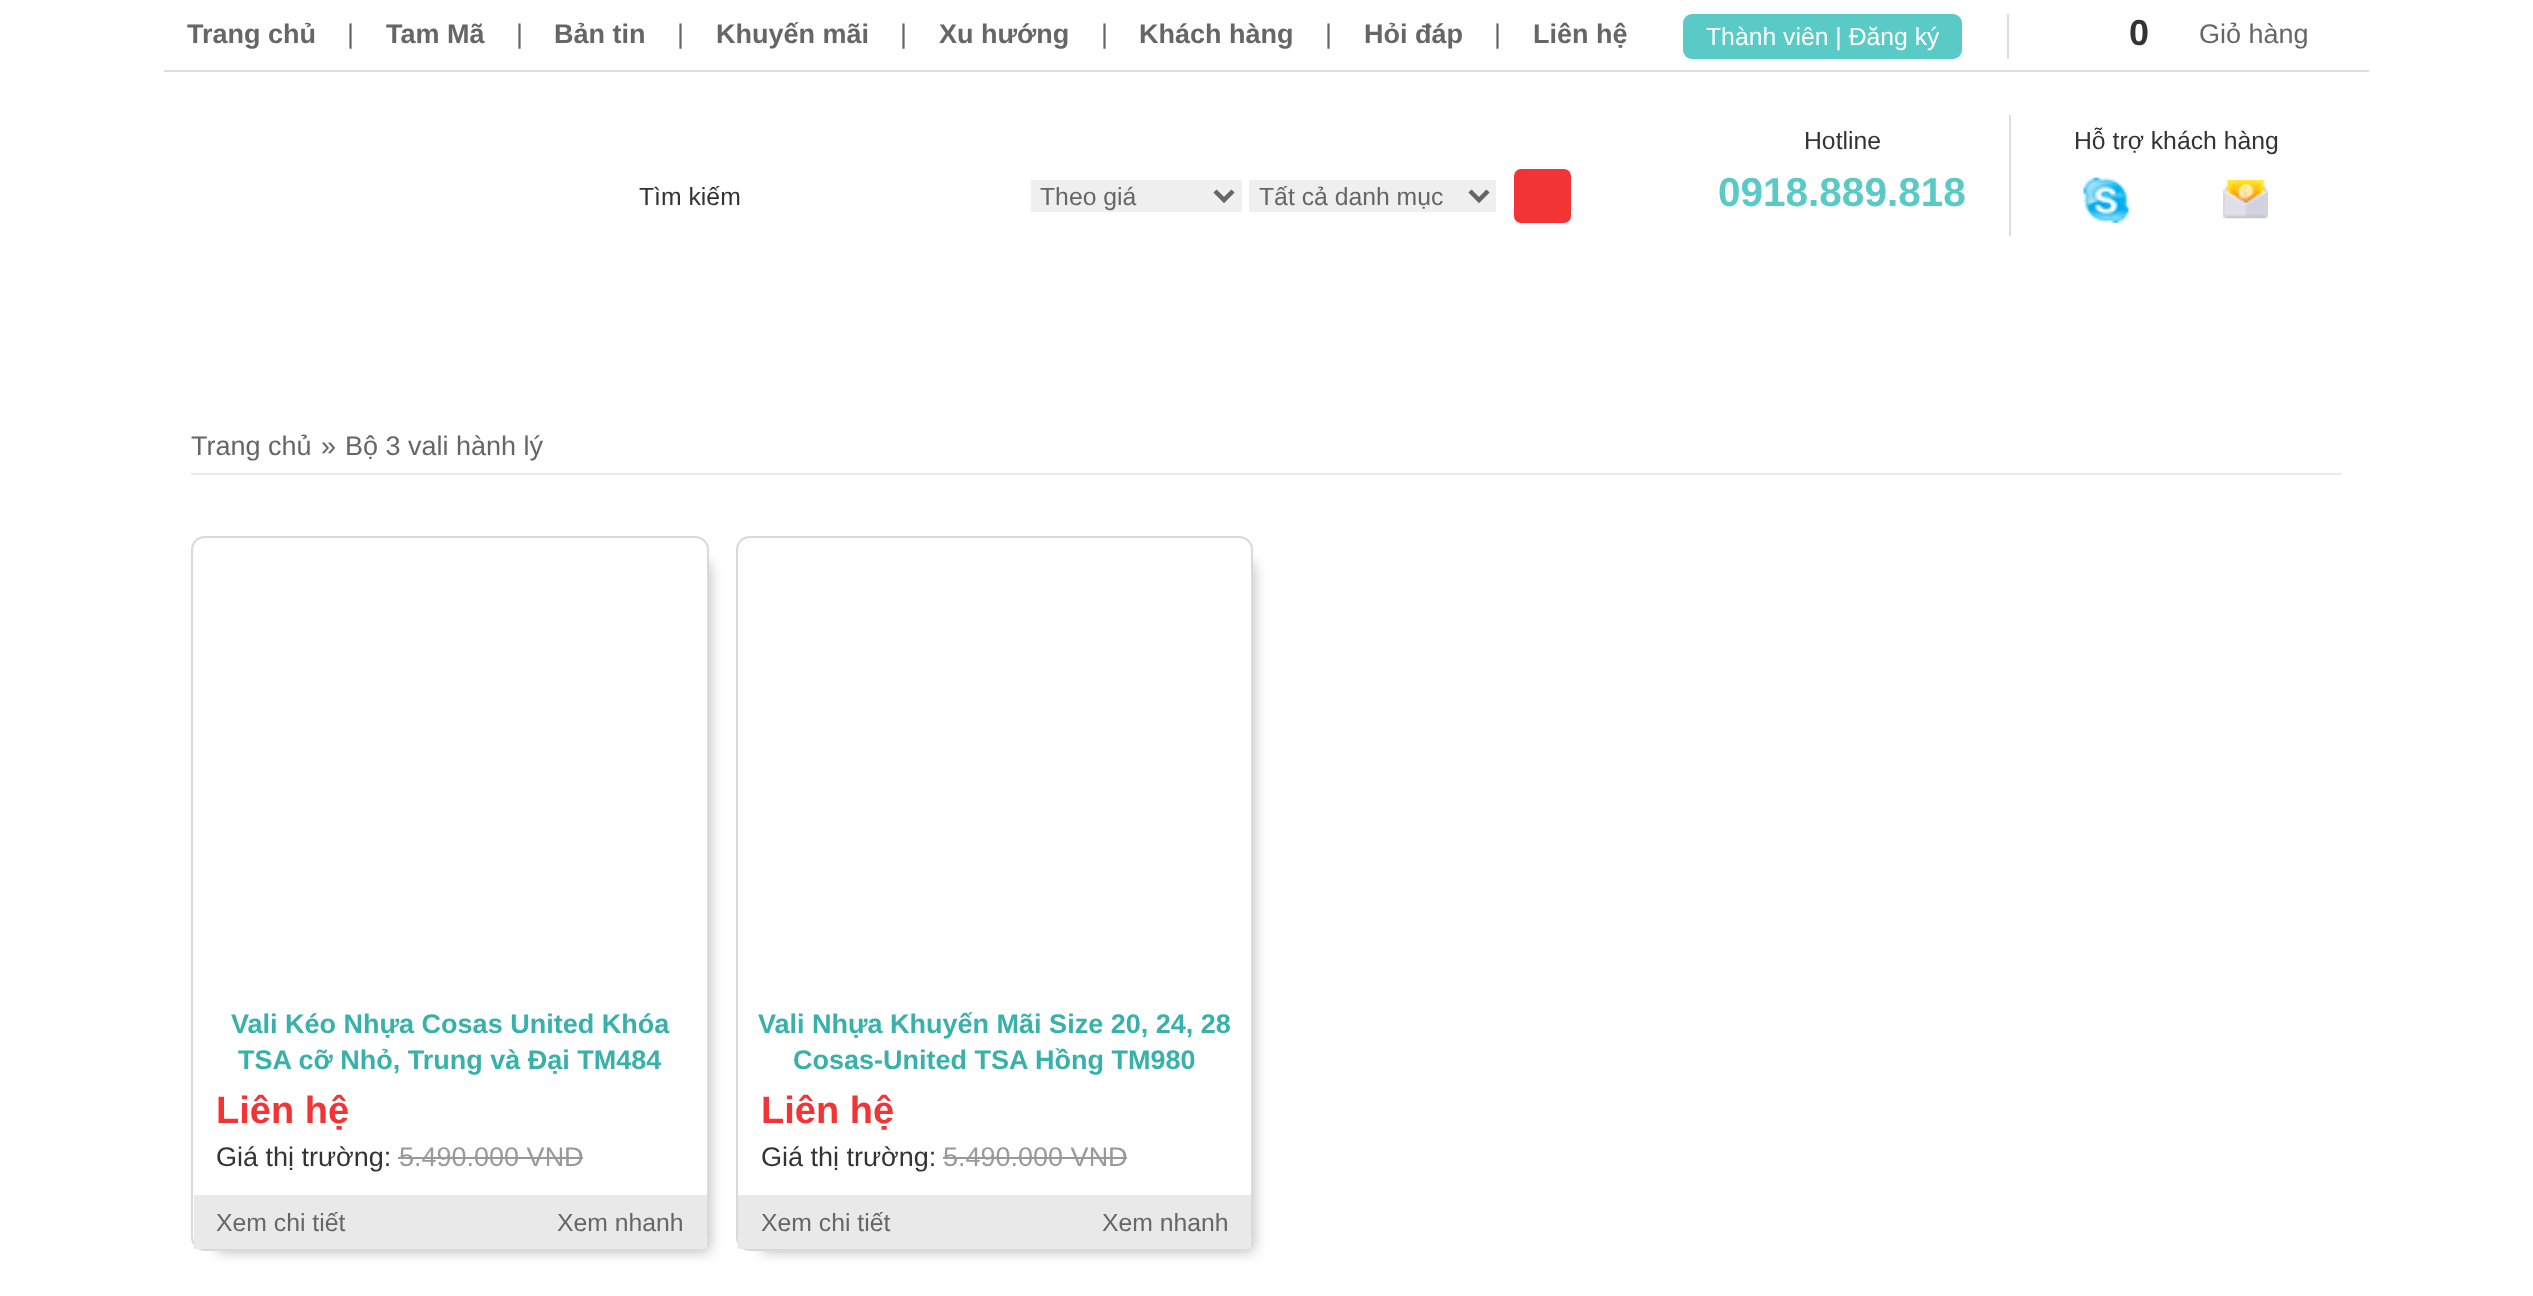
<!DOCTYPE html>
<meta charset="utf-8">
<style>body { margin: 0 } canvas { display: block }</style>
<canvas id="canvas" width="2533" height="1296"></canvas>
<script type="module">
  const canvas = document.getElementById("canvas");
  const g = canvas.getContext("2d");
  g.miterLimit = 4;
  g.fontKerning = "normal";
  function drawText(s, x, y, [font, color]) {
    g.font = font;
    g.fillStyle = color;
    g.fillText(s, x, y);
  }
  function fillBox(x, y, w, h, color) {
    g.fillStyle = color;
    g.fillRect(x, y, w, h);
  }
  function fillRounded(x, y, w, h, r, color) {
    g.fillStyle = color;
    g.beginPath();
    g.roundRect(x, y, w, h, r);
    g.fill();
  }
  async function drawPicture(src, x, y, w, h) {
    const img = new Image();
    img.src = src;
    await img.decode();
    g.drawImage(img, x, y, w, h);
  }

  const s1 = ["bold 27px Liberation Sans", "#666666"];
  const s2 = ["27px Liberation Sans", "#666666"];
  const s3 = ["24.75px Liberation Sans", "#FFFFFF"];
  const s4 = ["bold 36px Liberation Sans", "#333333"];
  const s5 = ["24.75px Liberation Sans", "#333333"];
  const s6 = ["24.75px Liberation Sans", "#666666"];
  const s7 = ["bold 40.5px Liberation Sans", "#59CAC5"];
  const s8 = ["bold 27px Liberation Sans", "#38B1AB"];
  const s9 = ["bold 38px Liberation Sans", "#F33434"];
  const s10 = ["27px Liberation Sans", "#333333"];
  const s11 = ["27px Liberation Sans", "#999999"];

  fillBox(0, 0, 2533, 1296, "#FFFFFF");
  fillBox(164, 70, 2205, 2, "#DDDDDD");
  drawText("Trang chủ", 187, 43, s1);
  drawText("|", 347, 43, s2);
  drawText("Tam Mã", 386, 43, s1);
  drawText("|", 516, 43, s2);
  drawText("Bản tin", 554, 43, s1);
  drawText("|", 677, 43, s2);
  drawText("Khuyến mãi", 716, 43, s1);
  drawText("|", 900, 43, s2);
  drawText("Xu hướng", 939, 43, s1);
  drawText("|", 1101, 43, s2);
  drawText("Khách hàng", 1139, 43, s1);
  drawText("|", 1325, 43, s2);
  drawText("Hỏi đáp", 1364, 43, s1);
  drawText("|", 1494, 43, s2);
  drawText("Liên hệ", 1533, 43, s1);
  fillBox(2007, 14, 2, 45, "#DDDDDD");
  fillRounded(1683, 14, 279, 45, 9, "#59CAC5");
  drawText("Thành viên | Đăng ký", 1706, 45, s3);
  drawText("0", 2129, 45, s4);
  drawText("Giỏ hàng", 2199, 43, s2);
  drawText("Tìm kiếm", 639, 205, s5);
  fillBox(1031, 180, 211, 32, "#EFEFEF");
  g.beginPath();
  g.moveTo(1215, 191);
  g.lineTo(1224, 200);
  g.lineTo(1233, 191);
  g.strokeStyle = "#666666";
  g.lineWidth = 4.5;
  g.stroke();
  drawText("Theo giá", 1040, 205, s6);
  fillBox(1249, 180, 247, 32, "#EFEFEF");
  g.beginPath();
  g.moveTo(1470, 191);
  g.lineTo(1479, 200);
  g.lineTo(1488, 191);
  g.stroke();
  drawText("Tất cả danh mục", 1259, 205, s6);
  g.fillStyle = "#F33434";
  g.beginPath();
  g.roundRect(1515, 170, 55, 52, 6);
  g.fill();
  g.strokeStyle = "#F33434";
  g.lineWidth = 2;
  g.stroke();
  drawText("Hotline", 1804, 149, s5);
  drawText("Hỗ trợ khách hàng", 2074, 149, s5);
  fillBox(2009, 115, 2, 121, "#DDDDDD");
  drawText("0918.889.818", 1718, 206, s7);
  await drawPicture("pic1.png", 2083, 177, 47, 46);
  await drawPicture("pic2.png", 2223, 180, 45, 39);
  fillBox(191, 473, 2151, 2, "#EBEBEB");
  drawText("Trang chủ", 191, 455, s2);
  drawText("»", 321, 455, s2);
  drawText("Bộ 3 vali hành lý", 345, 455, s2);
  g.save();
  g.beginPath();
  g.moveTo(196, 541);
  g.lineTo(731, 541);
  g.lineTo(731, 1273);
  g.lineTo(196, 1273);
  g.closePath();
  g.moveTo(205, 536);
  g.lineTo(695, 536);
  g.bezierCurveTo(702.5, 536, 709, 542.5, 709, 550);
  g.lineTo(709, 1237);
  g.bezierCurveTo(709, 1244.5, 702.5, 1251, 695, 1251);
  g.lineTo(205, 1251);
  g.bezierCurveTo(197.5, 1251, 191, 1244.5, 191, 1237);
  g.lineTo(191, 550);
  g.bezierCurveTo(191, 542.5, 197.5, 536, 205, 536);
  g.closePath();
  g.clip("evenodd");
  g.fillStyle = "rgba(0, 0, 0, 0.3)";
  g.filter = "blur(7px)";
  g.beginPath();
  g.rect(218, 563, 491, 688);
  g.fill();
  g.filter = "none";
  g.restore();
  g.beginPath();
  g.roundRect(192, 537, 516, 713, 13);
  g.strokeStyle = "#D9D9D9";
  g.stroke();
  drawText("Vali Kéo Nhựa Cosas United Khóa", 231, 1033, s8);
  drawText("TSA cỡ Nhỏ, Trung và Đại TM484", 238, 1069, s8);
  drawText("Liên hệ", 216, 1123, s9);
  drawText("Giá thị trường:", 216, 1166, s10);
  drawText("5.490.000 VND", 399, 1166, s11);
  fillBox(398, 1157, 185, 2, "#999999");
  fillBox(194, 1195, 513, 54, "#E9E9E9");
  drawText("Xem chi tiết", 216, 1231, s6);
  drawText("Xem nhanh", 557, 1231, s6);
  g.save();
  g.beginPath();
  g.moveTo(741, 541);
  g.lineTo(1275, 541);
  g.lineTo(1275, 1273);
  g.lineTo(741, 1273);
  g.closePath();
  g.moveTo(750, 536);
  g.lineTo(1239, 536);
  g.bezierCurveTo(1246.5, 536, 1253, 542.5, 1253, 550);
  g.lineTo(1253, 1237);
  g.bezierCurveTo(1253, 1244.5, 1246.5, 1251, 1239, 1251);
  g.lineTo(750, 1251);
  g.bezierCurveTo(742.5, 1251, 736, 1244.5, 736, 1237);
  g.lineTo(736, 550);
  g.bezierCurveTo(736, 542.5, 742.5, 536, 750, 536);
  g.closePath();
  g.clip("evenodd");
  g.fillStyle = "rgba(0, 0, 0, 0.3)";
  g.filter = "blur(7px)";
  g.beginPath();
  g.rect(763, 563, 490, 688);
  g.fill();
  g.filter = "none";
  g.restore();
  g.beginPath();
  g.roundRect(737, 537, 515, 713, 13);
  g.stroke();
  drawText("Vali Nhựa Khuyến Mãi Size 20, 24, 28", 758, 1033, s8);
  drawText("Cosas-United TSA Hồng TM980", 793, 1069, s8);
  drawText("Liên hệ", 761, 1123, s9);
  drawText("Giá thị trường:", 761, 1166, s10);
  drawText("5.490.000 VND", 943, 1166, s11);
  fillBox(943, 1157, 184, 2, "#999999");
  fillBox(738, 1195, 513, 54, "#E9E9E9");
  drawText("Xem chi tiết", 761, 1231, s6);
  drawText("Xem nhanh", 1102, 1231, s6);
</script>
